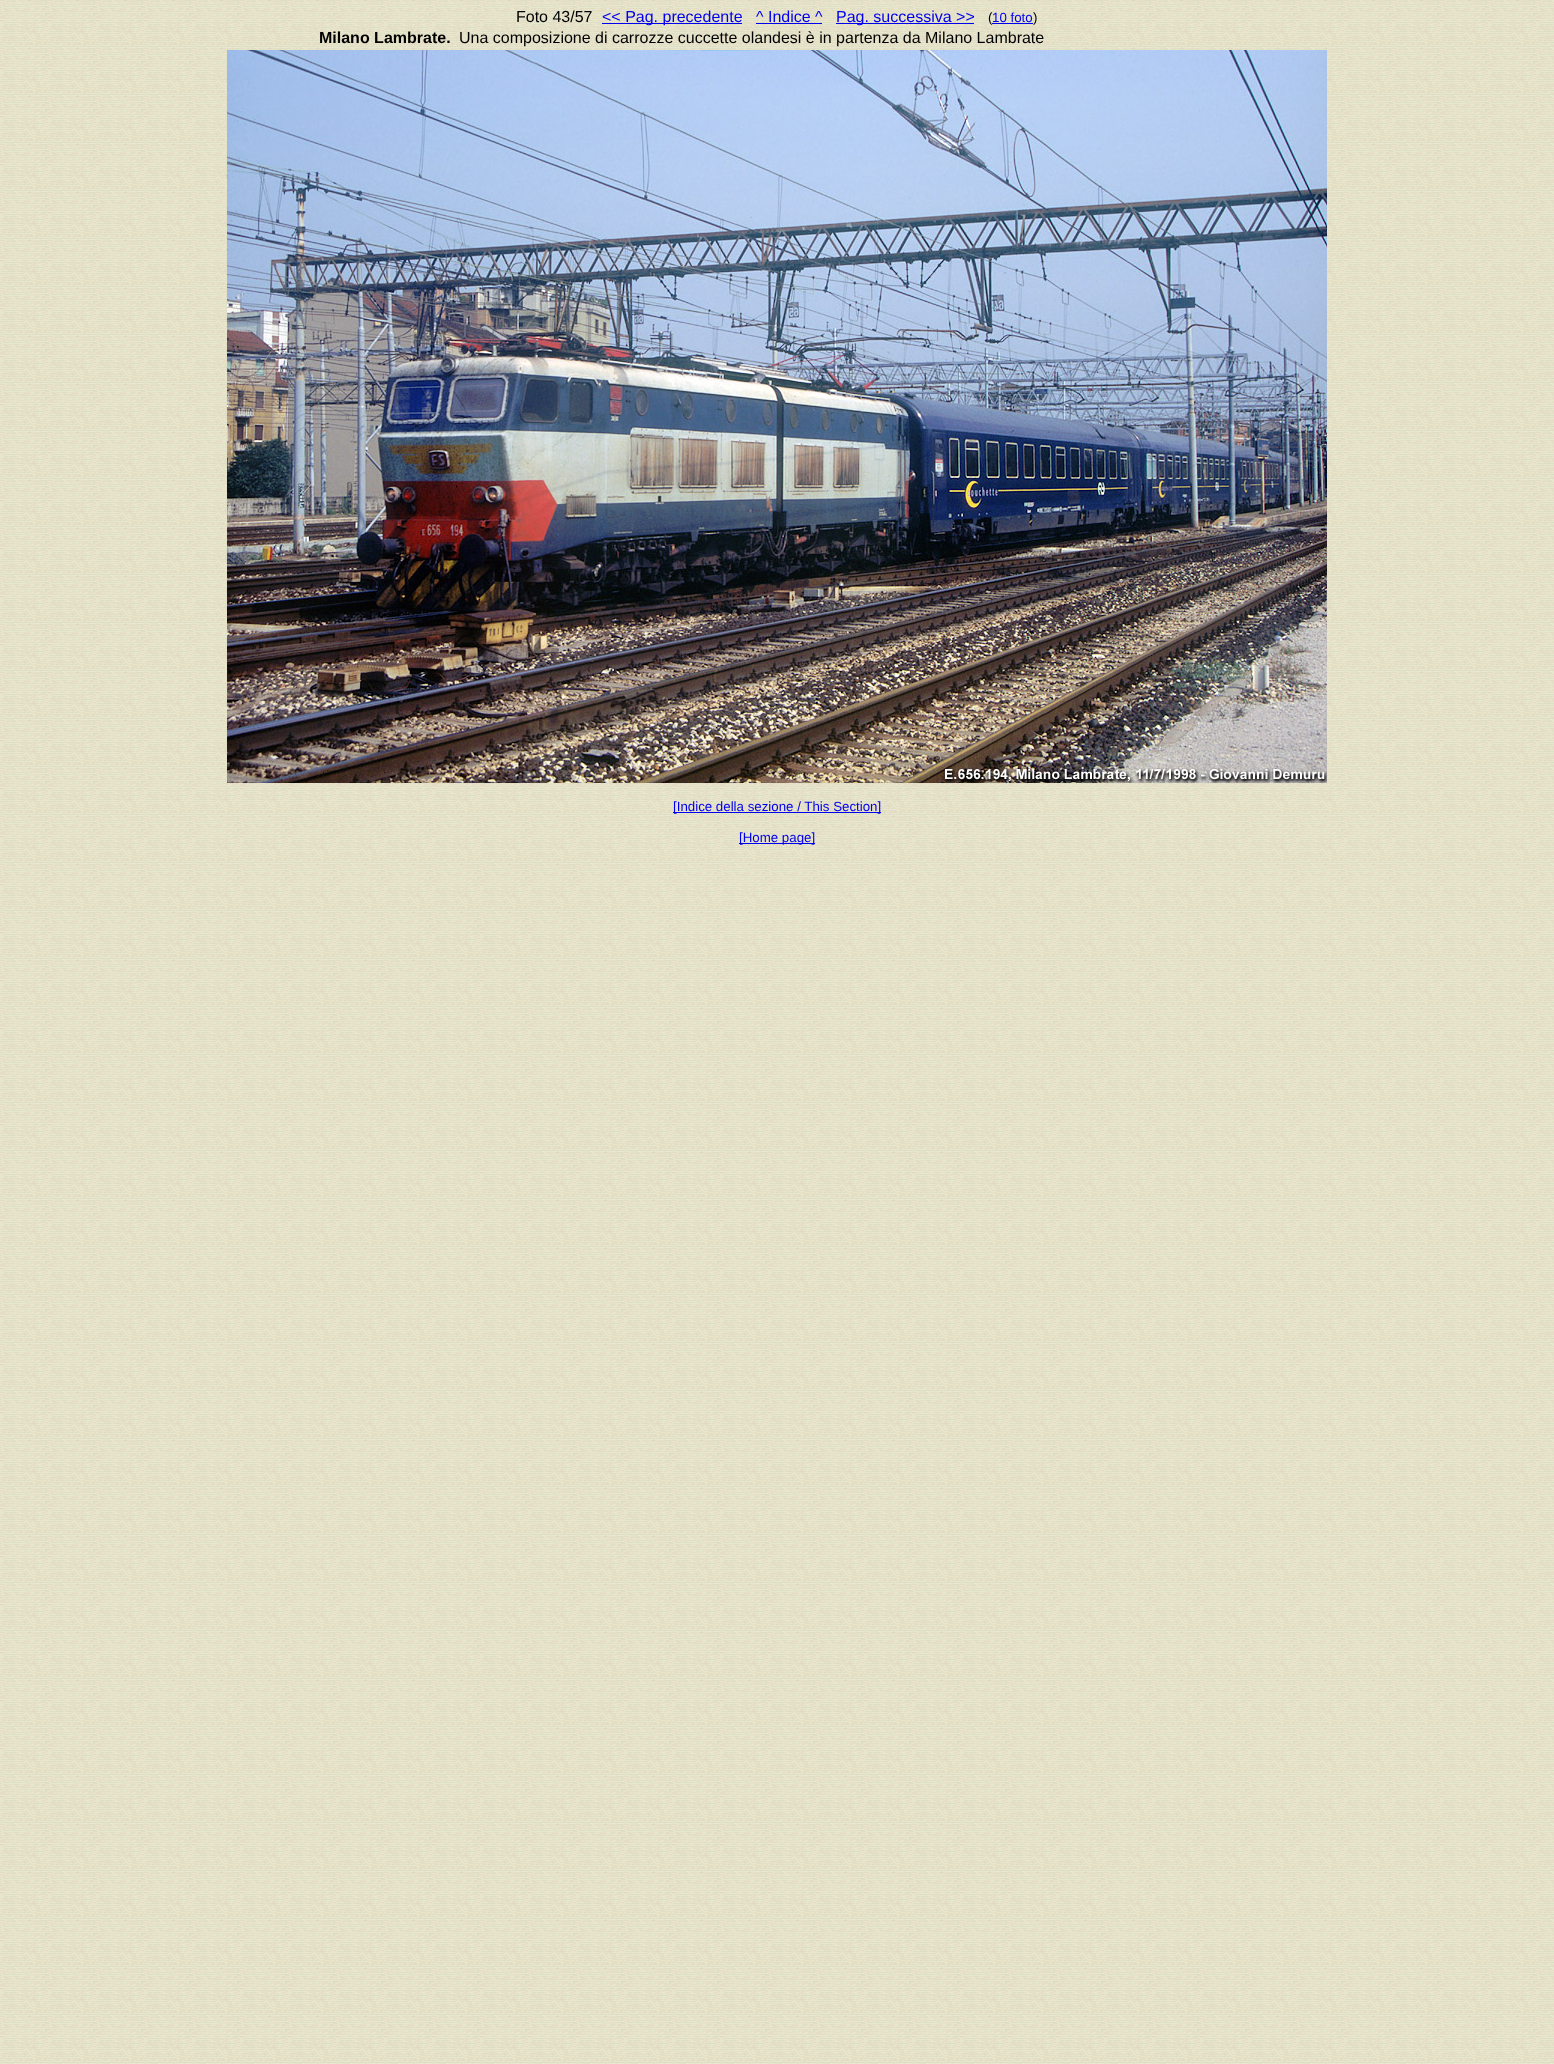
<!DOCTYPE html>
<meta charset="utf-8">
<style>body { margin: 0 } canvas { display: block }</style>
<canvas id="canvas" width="1554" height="2064"></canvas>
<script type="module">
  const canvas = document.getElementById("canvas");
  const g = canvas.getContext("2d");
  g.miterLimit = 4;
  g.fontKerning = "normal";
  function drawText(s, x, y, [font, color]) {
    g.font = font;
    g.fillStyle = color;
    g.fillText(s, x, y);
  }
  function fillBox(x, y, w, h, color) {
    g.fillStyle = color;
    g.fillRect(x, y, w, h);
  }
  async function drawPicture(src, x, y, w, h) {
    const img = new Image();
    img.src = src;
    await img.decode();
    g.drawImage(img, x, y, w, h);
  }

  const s1 = ["16px Liberation Sans", "#000000"];
  const s2 = ["16px Liberation Sans", "#0000EE"];
  const s3 = ["13.3px Liberation Sans", "#000000"];
  const s4 = ["13.3px Liberation Sans", "#0000EE"];
  const s5 = ["bold 16px Liberation Sans", "#000000"];

  fillBox(0, 0, 1554, 2064, "#FFFFFF");
  await drawPicture("pic1.png", 0, 0, 1554, 2064);
  drawText("Foto 43/57", 516, 22, s1);
  fillBox(602, 23, 140, 1, "#0000EE");
  drawText("<< Pag. precedente", 602, 22, s2);
  drawText("^ Indice ^", 756, 22, s2);
  fillBox(756, 23, 66, 1, "#0000EE");
  fillBox(836, 23, 138, 1, "#0000EE");
  drawText("Pag. successiva >>", 836, 22, s2);
  drawText("(", 988, 22, s3);
  fillBox(992, 23, 41, 1, "#0000EE");
  drawText("10 foto", 992, 22, s4);
  drawText(")", 1033, 22, s3);
  drawText("Milano Lambrate.", 319, 43, s5);
  drawText("Una composizione di carrozze cuccette olandesi è in partenza da Milano Lambrate", 459, 43, s1);
  await drawPicture("pic2.png", 227, 50, 1100, 733);
  fillBox(673, 812, 208, 1, "#0000EE");
  drawText("[Indice della sezione / This Section]", 673, 811, s4);
  fillBox(739, 843, 76, 1, "#0000EE");
  drawText("[Home page]", 739, 842, s4);
</script>
